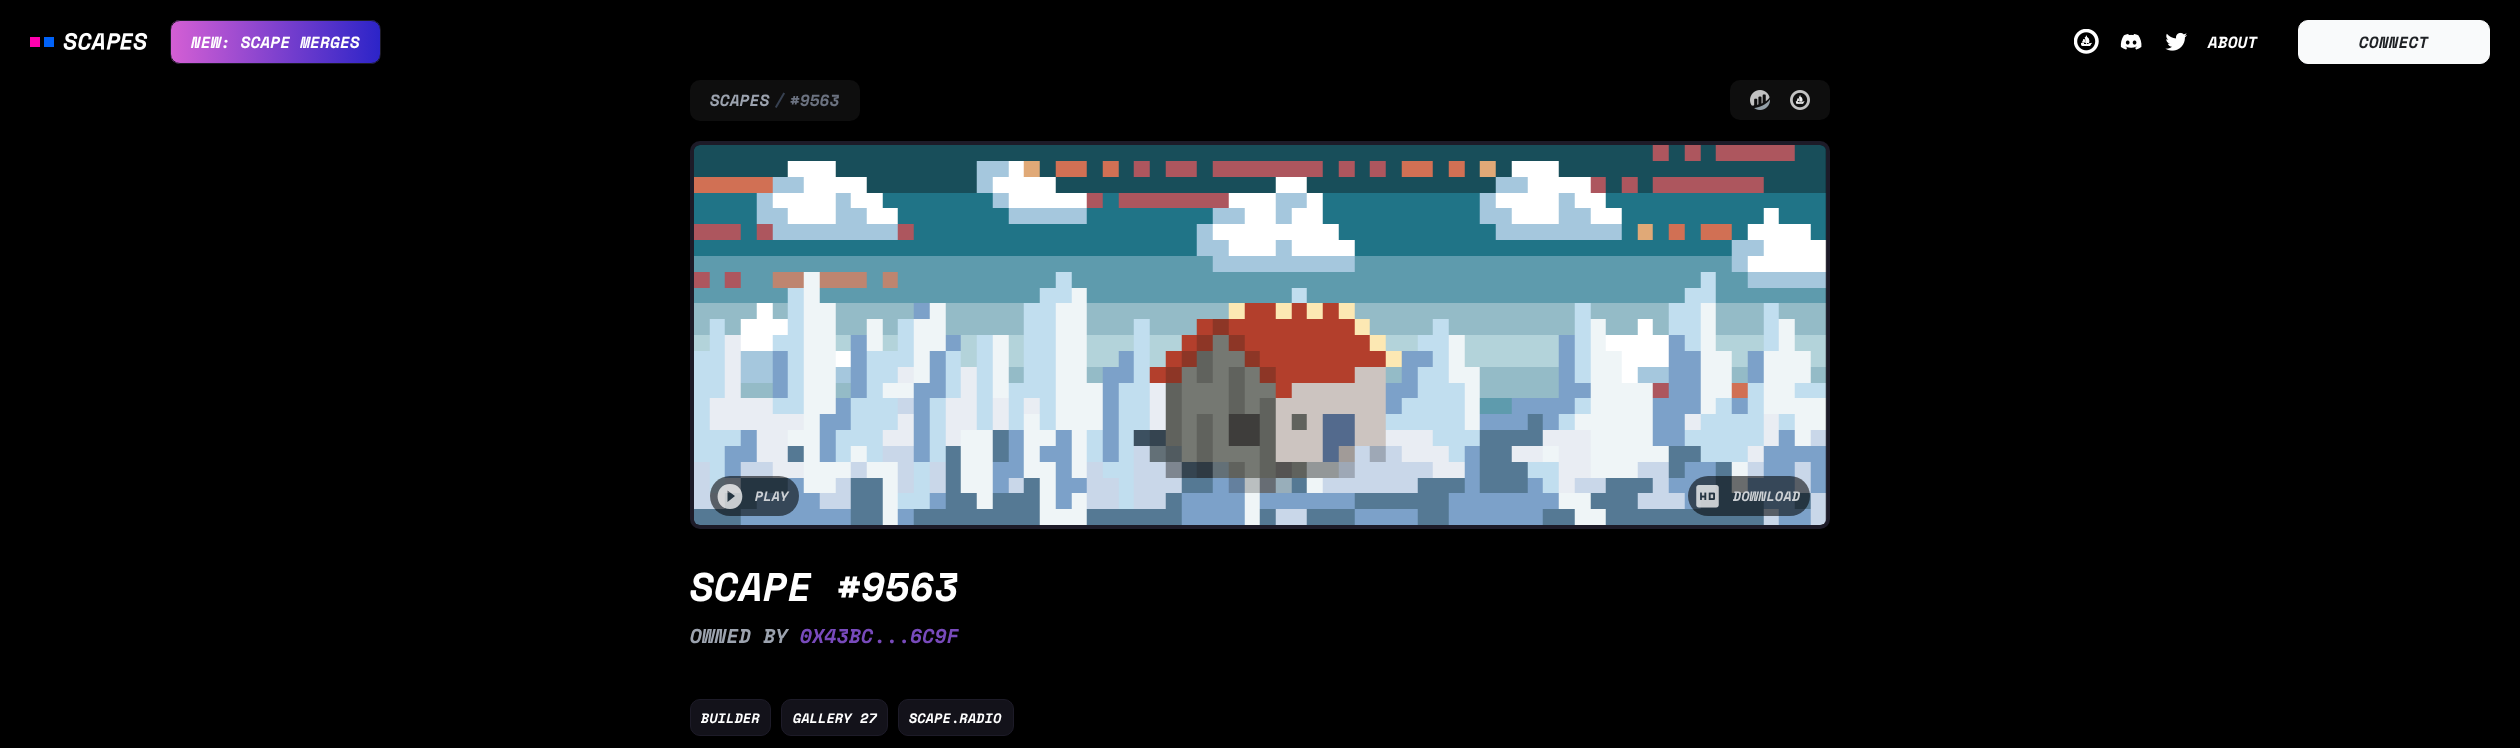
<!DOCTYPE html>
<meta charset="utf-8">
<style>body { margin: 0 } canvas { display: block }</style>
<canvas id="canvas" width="2520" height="748"></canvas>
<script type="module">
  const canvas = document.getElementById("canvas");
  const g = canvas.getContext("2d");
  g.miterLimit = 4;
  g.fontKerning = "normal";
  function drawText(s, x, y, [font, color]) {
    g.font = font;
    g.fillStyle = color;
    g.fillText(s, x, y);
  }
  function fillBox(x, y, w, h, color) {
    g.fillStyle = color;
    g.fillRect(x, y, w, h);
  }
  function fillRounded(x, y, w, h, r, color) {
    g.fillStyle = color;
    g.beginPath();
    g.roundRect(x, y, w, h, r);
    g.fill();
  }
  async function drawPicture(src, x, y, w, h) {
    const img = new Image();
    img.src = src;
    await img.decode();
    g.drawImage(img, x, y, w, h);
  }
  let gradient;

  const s1 = ["italic bold 16.25px Space Mono", "#FFFFFF"];
  const s2 = ["italic bold 16.25px Space Mono", "#1E2024"];
  const s3 = ["italic bold 16.25px Space Mono", "#9CA3AF"];
  const s4 = ["italic bold 16.25px Space Mono", "#374151"];
  const s5 = ["italic bold 16.25px Space Mono", "#6B7280"];
  const s6 = ["italic bold 13.75px Space Mono", "#CCD0D4"];
  const s7 = ["italic bold 40px Space Mono", "#FFFFFF"];
  const s8 = ["italic bold 20px Space Mono", "#9CA3AF"];
  const s9 = ["italic bold 20px Space Mono", "#784ABB"];
  const s10 = ["italic bold 13.75px Space Mono", "#FFFFFF"];

  fillBox(0, 0, 2520, 748, "#000000");
  await drawPicture("pic1.png", 30, 32, 118, 18);
  g.save();
  g.beginPath();
  g.roundRect(170, 20, 211, 44, 10);
  g.clip();
  gradient = g.createLinearGradient(171, 42, 380, 42);
  gradient.addColorStop(0, "#D45FD4");
  gradient.addColorStop(1, "#2C24C8");
  g.fillStyle = gradient;
  g.fillRect(171, 20, 209, 44);
  g.restore();
  g.beginPath();
  g.roundRect(170.5, 20.5, 210, 43, 9.5);
  g.strokeStyle = "#1D1B28";
  g.stroke();
  drawText("NEW: SCAPE MERGES", 191, 48, s1);
  await drawPicture("pic2.png", 2074, 29, 25, 25);
  await drawPicture("pic3.png", 2120, 34, 22, 16);
  await drawPicture("pic4.png", 2165, 32, 22, 19);
  drawText("ABOUT", 2208, 48, s1);
  g.fillStyle = "#F9FAFB";
  g.beginPath();
  g.roundRect(2298.5, 20.5, 191, 43, 9.5);
  g.fill();
  g.strokeStyle = "#F9FAFB";
  g.stroke();
  drawText("CONNECT", 2359, 48, s2);
  fillRounded(690, 80, 170, 41, 10, "#0E0E0E");
  drawText("SCAPES", 710, 106, s3);
  drawText("/", 775, 106, s4);
  drawText("#9563", 790, 106, s5);
  fillRounded(1730, 80, 100, 40, 10, "#0E0E0E");
  await drawPicture("pic5.png", 1750, 90, 20, 20);
  await drawPicture("pic6.png", 1790, 90, 20, 20);
  g.beginPath();
  g.roundRect(692, 143, 1136, 384, 8);
  g.strokeStyle = "#1D1B28";
  g.lineWidth = 4;
  g.stroke();
  await drawPicture("pic7.png", 694, 145, 1133, 380);
  fillRounded(710, 476, 89, 40, 20, "rgba(0, 0, 0, 0.56)");
  g.fillStyle = "rgba(255, 255, 255, 0.75)";
  g.beginPath();
  g.moveTo(727.5, 502);
  g.lineTo(727.5, 490.5);
  g.lineTo(735, 496);
  g.moveTo(730, 484);
  g.bezierCurveTo(713.5, 484, 713.5, 509, 730, 509);
  g.bezierCurveTo(746.5, 509, 746.5, 484, 730, 484);
  g.closePath();
  g.fill();
  drawText("PLAY", 755, 501, s6);
  fillRounded(1688, 476, 122, 40, 20, "rgba(0, 0, 0, 0.56)");
  await drawPicture("pic8.png", 1696, 485, 23, 23);
  drawText("DOWNLOAD", 1733, 501, s6);
  drawText("SCAPE #9563", 690, 601, s7);
  drawText("OWNED BY", 690, 643, s8);
  drawText("0X43BC...6C9F", 800, 643, s9);
  g.fillStyle = "#13121A";
  g.beginPath();
  g.roundRect(690.5, 699.5, 80, 36, 9.5);
  g.fill();
  g.lineWidth = 1;
  g.stroke();
  drawText("BUILDER", 701, 723, s10);
  g.fillStyle = "#13121A";
  g.beginPath();
  g.roundRect(781.5, 699.5, 106, 36, 9.5);
  g.fill();
  g.stroke();
  drawText("GALLERY 27", 793, 723, s10);
  g.fillStyle = "#13121A";
  g.beginPath();
  g.roundRect(898.5, 699.5, 115, 36, 9.5);
  g.fill();
  g.stroke();
  drawText("SCAPE.RADIO", 909, 723, s10);
</script>
